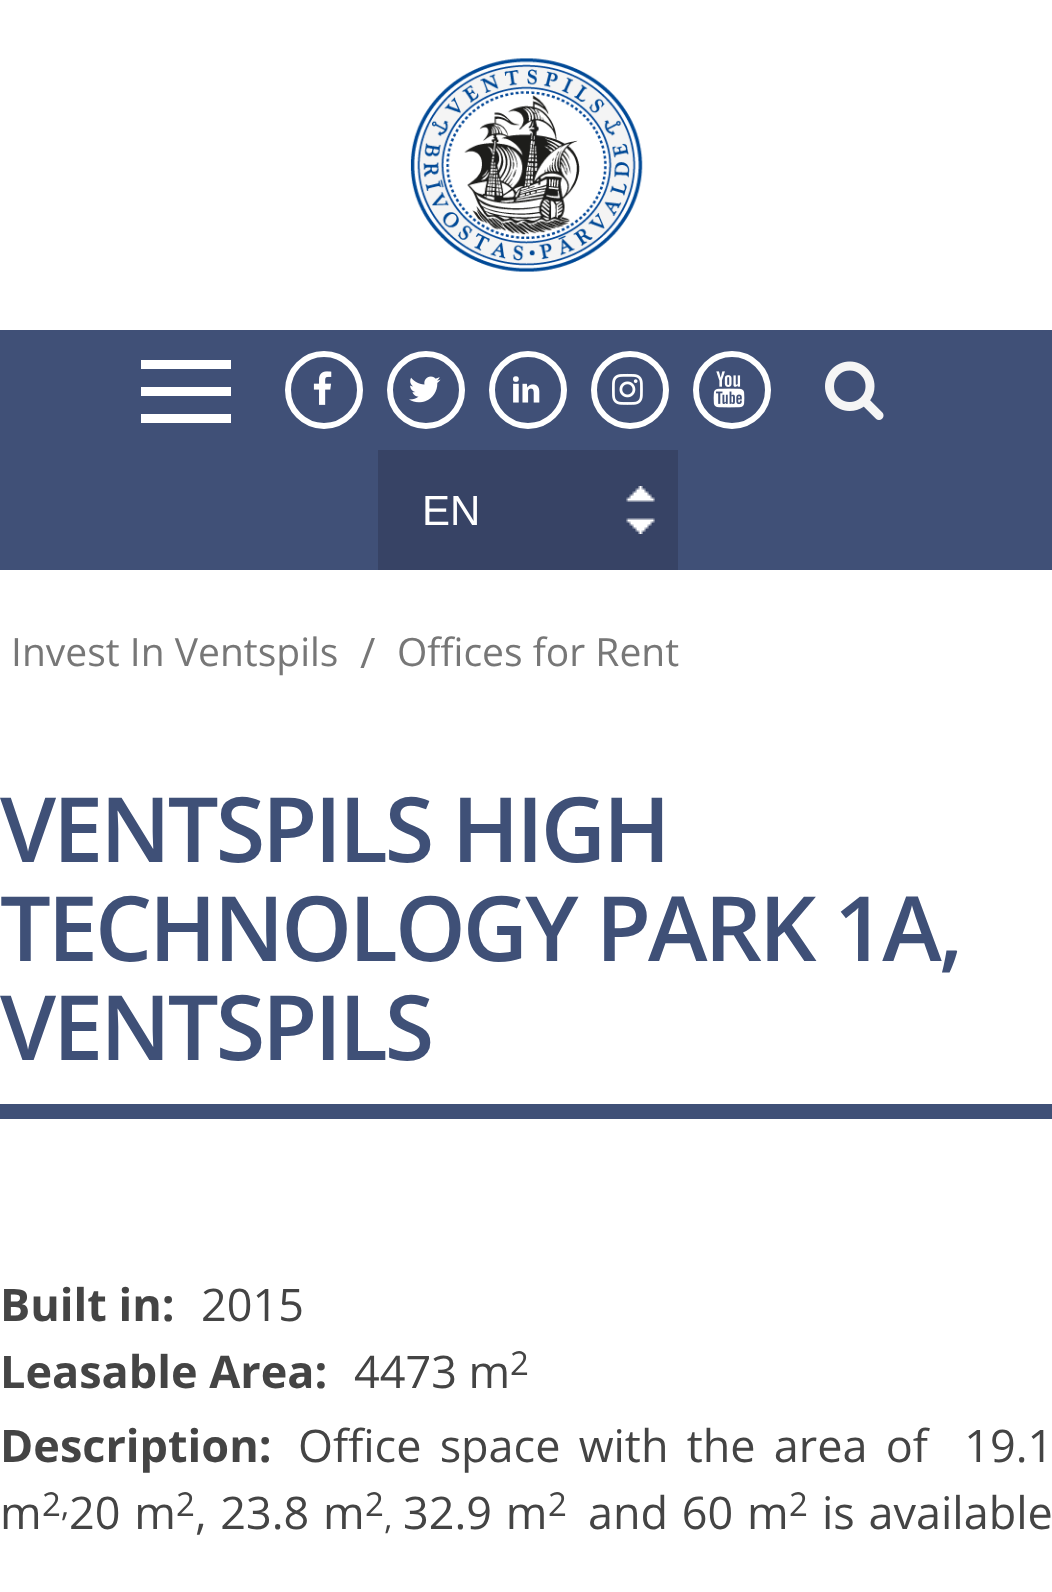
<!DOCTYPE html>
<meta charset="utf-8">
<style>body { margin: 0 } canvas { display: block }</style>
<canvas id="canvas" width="1052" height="1592"></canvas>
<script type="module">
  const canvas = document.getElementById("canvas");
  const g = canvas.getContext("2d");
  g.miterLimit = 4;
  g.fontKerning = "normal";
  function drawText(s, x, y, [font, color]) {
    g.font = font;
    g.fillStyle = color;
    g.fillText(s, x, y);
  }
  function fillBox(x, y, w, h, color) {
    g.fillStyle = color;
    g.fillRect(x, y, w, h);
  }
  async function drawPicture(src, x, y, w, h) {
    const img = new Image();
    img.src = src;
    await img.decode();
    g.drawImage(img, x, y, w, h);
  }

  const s1 = ["42px Liberation Sans", "#FFFFFF"];
  const s2 = ["39px Open Sans", "#777777"];
  const s3 = ["42px Open Sans", "#777777"];
  const s4 = ["600 90px Open Sans", "#3F5077"];
  const s5 = ["bold 45px Open Sans", "#444444"];
  const s6 = ["45px Open Sans", "#444444"];
  const s7 = ["33px Open Sans", "#444444"];

  fillBox(0, 0, 1052, 1592, "#FFFFFF");
  await drawPicture("pic1.png", 410, 58, 233, 214);
  fillBox(0, 330, 1052, 240, "#405077");
  fillBox(141, 360, 90, 9, "#FFFFFF");
  fillBox(141, 387, 90, 9, "#FFFFFF");
  fillBox(141, 414, 90, 9, "#FFFFFF");
  g.beginPath();
  g.arc(324, 390, 36, 0, Math.PI * 2);
  g.strokeStyle = "#FFFFFF";
  g.lineWidth = 6;
  g.stroke();
  await drawPicture("pic2.png", 313, 371, 19, 34);
  g.beginPath();
  g.arc(426, 390, 36, 0, Math.PI * 2);
  g.stroke();
  await drawPicture("pic3.png", 409, 376, 32, 27);
  g.beginPath();
  g.arc(528, 390, 36, 0, Math.PI * 2);
  g.stroke();
  await drawPicture("pic4.png", 513, 376, 27, 27);
  g.beginPath();
  g.arc(630, 390, 36, 0, Math.PI * 2);
  g.stroke();
  await drawPicture("pic5.png", 612, 373, 31, 32);
  g.beginPath();
  g.arc(732, 390, 36, 0, Math.PI * 2);
  g.stroke();
  await drawPicture("pic6.png", 713, 371, 32, 37);
  await drawPicture("pic7.png", 825, 361, 59, 59);
  fillBox(378, 450, 300, 120, "#374365");
  drawText("EN", 422, 525, s1);
  await drawPicture("pic8.png", 626, 486, 29, 48);
  drawText("Invest In Ventspils", 11, 666, s2);
  drawText("/", 360, 668, s3);
  drawText("Offices for Rent", 397, 666, s2);
  fillBox(0, 1104, 1052, 15, "#3F5077");
  g.letterSpacing = "-3px";
  drawText("VENTSPILS HIGH", 0, 862, s4);
  drawText("TECHNOLOGY PARK 1A,", 0, 961, s4);
  drawText("VENTSPILS", 0, 1060, s4);
  g.letterSpacing = "0px";
  drawText("Built in:", 0, 1321, s5);
  drawText("2015", 201, 1321, s6);
  drawText("Leasable Area:", 0, 1388, s5);
  drawText("4473 m", 354, 1388, s6);
  drawText("2", 510, 1375, s7);
  g.wordSpacing = "6.5px";
  drawText("Office space with the area of  19.1", 298, 1462, s6);
  g.wordSpacing = "0px";
  drawText("m", 0, 1529, s6);
  drawText("2,", 42, 1516, s7);
  g.wordSpacing = "2px";
  drawText("20 m", 69, 1529, s6);
  g.wordSpacing = "0px";
  drawText("2", 176, 1516, s7);
  g.wordSpacing = "2px";
  drawText(", 23.8 m", 195, 1529, s6);
  g.wordSpacing = "0px";
  drawText("2", 365, 1516, s7);
  drawText(",", 384, 1529, s7);
  g.wordSpacing = "2px";
  drawText("32.9 m", 403, 1529, s6);
  g.wordSpacing = "0px";
  drawText("2", 548, 1516, s7);
  g.wordSpacing = "2px";
  drawText("and 60 m", 588, 1529, s6);
  g.wordSpacing = "0px";
  drawText("2", 789, 1516, s7);
  g.wordSpacing = "2px";
  drawText("is available", 822, 1529, s6);
  g.wordSpacing = "0px";
  drawText("Description:", 0, 1462, s5);
</script>
